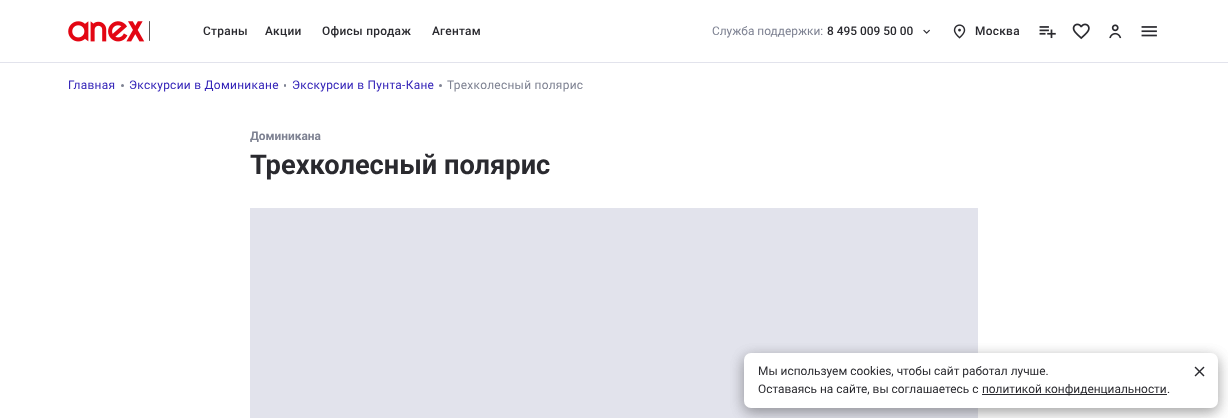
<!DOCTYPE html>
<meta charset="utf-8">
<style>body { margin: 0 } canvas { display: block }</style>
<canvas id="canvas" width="1228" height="418"></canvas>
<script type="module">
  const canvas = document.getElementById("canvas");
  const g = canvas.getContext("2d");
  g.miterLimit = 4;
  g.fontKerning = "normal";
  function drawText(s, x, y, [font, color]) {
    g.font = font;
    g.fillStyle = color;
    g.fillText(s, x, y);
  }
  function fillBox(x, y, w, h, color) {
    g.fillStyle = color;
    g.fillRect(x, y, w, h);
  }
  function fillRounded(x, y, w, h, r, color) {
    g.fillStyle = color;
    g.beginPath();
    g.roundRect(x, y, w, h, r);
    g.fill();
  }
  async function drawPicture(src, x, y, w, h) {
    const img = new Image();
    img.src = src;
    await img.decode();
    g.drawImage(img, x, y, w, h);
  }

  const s1 = ["500 11.9px Roboto", "#2A2A2F"];
  const s2 = ["11.9px Roboto", "#7E8292"];
  const s3 = ["11.9px Roboto", "#3323B8"];
  const s4 = ["bold 11.9px Roboto", "#7E8292"];
  const s5 = ["bold 27.25px Roboto", "#2A2A2F"];
  const s6 = ["11.9px Roboto", "#2A2A2F"];

  fillBox(0, 0, 1228, 418, "#FFFFFF");
  fillBox(0, 62, 1228, 1, "#E2E3EC");
  await drawPicture("pic1.png", 68, 21, 82, 21);
  g.letterSpacing = "0.3px";
  drawText("Страны", 203, 35, s1);
  drawText("Акции", 265, 35, s1);
  drawText("Офисы продаж", 322, 35, s1);
  drawText("Агентам", 432, 35, s1);
  g.letterSpacing = "0px";
  drawText("Служба поддержки:", 712, 35, s2);
  drawText("8 495 009 50 00", 827, 35, s1);
  await drawPicture("pic2.png", 923, 29, 7, 5);
  await drawPicture("pic3.png", 953, 24, 13, 15);
  g.letterSpacing = "0.3px";
  drawText("Москва", 975, 35, s1);
  await drawPicture("pic4.png", 1039, 26, 17, 13);
  await drawPicture("pic5.png", 1072, 23, 18, 17);
  await drawPicture("pic6.png", 1109, 24, 13, 15);
  await drawPicture("pic7.png", 1141, 26, 16, 11);
  drawText("Главная", 68, 89, s3);
  g.fillStyle = "#7E8292";
  g.beginPath();
  g.arc(122.5, 85.5, 1.5, 0, Math.PI * 2);
  g.fill();
  drawText("Экскурсии в Доминикане", 129, 89, s3);
  fillRounded(284, 84, 2, 3, 1, "#7E8292");
  drawText("Экскурсии в Пунта-Кане", 292, 89, s3);
  g.fillStyle = "#7E8292";
  g.beginPath();
  g.arc(440.5, 85.5, 1.5, 0, Math.PI * 2);
  g.fill();
  drawText("Трехколесный полярис", 447, 89, s2);
  g.letterSpacing = "0px";
  drawText("Доминикана", 250, 140, s4);
  drawText("Трехколесный полярис", 250, 174, s5);
  fillBox(250, 208, 728, 210, "#E2E3EC");
  g.fillStyle = "rgba(0, 0, 0, 0.2)";
  g.filter = "blur(7px)";
  g.beginPath();
  g.roundRect(744, 357, 474, 55, 7);
  g.fill();
  g.filter = "none";
  g.filter = "blur(7px)";
  g.beginPath();
  g.roundRect(744, 357, 474, 55, 7);
  g.fill();
  g.filter = "none";
  fillRounded(744, 353, 474, 55, 7, "#FFFFFF");
  drawText("Мы используем cookies, чтобы сайт работал лучше.", 758, 375, s6);
  drawText("Оставаясь на сайте, вы соглашаетесь с", 758, 393, s6);
  fillBox(982, 394, 185, 1, "#2A2A2F");
  drawText("политикой конфиденциальности", 982, 393, s6);
  drawText(".", 1167, 393, s6);
  await drawPicture("pic8.png", 1194, 366, 11, 11);
</script>
